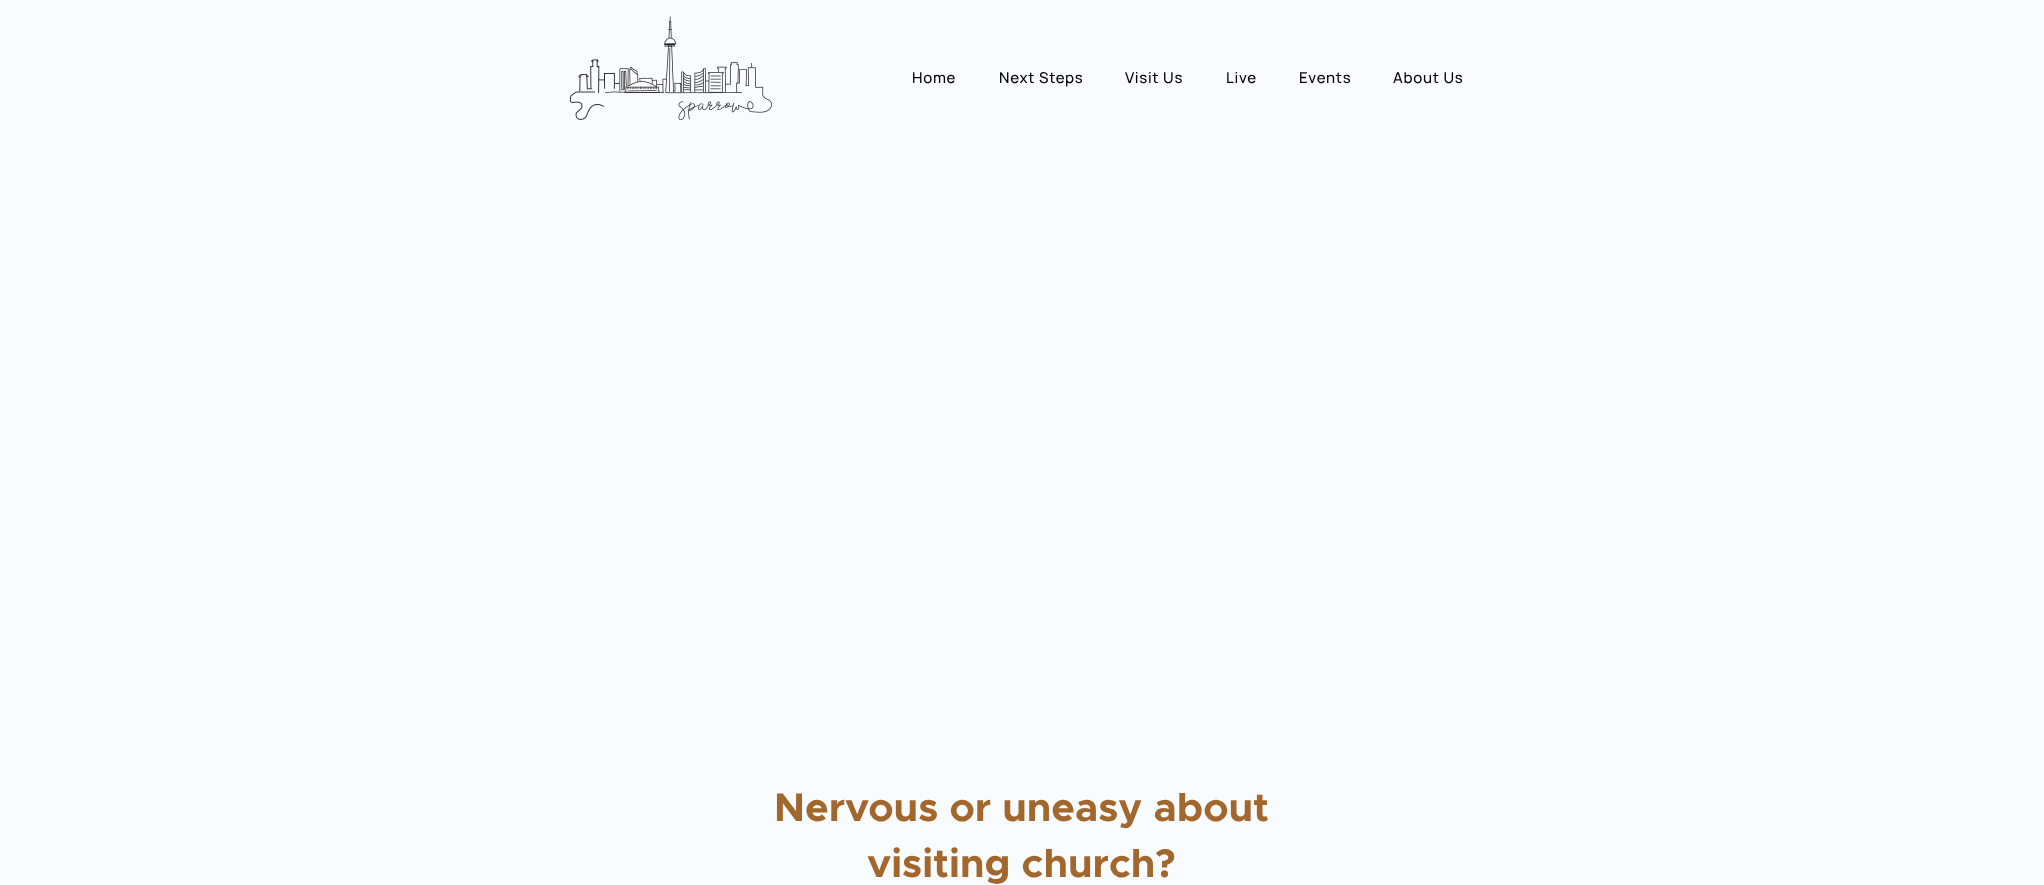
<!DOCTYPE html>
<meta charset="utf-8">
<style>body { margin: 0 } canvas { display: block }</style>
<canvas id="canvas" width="2044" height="885"></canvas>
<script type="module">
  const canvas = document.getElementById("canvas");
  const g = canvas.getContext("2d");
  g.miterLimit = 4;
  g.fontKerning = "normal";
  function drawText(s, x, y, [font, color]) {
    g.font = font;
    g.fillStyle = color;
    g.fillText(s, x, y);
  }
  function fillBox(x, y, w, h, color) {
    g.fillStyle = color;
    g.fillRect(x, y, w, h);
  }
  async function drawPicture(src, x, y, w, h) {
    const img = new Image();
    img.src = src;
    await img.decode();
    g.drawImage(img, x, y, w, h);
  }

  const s1 = ["500 15px Manrope", "#000000"];
  const s2 = ["bold 40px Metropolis", "#A2672D"];

  fillBox(0, 0, 2044, 885, "#F9FCFF");
  await drawPicture("pic1.png", 569, 16, 203, 104);
  g.letterSpacing = "0.75px";
  drawText("Home", 912, 83, s1);
  drawText("Next Steps", 999, 83, s1);
  drawText("Visit Us", 1125, 83, s1);
  drawText("Live", 1226, 83, s1);
  drawText("Events", 1299, 83, s1);
  drawText("About Us", 1393, 83, s1);
  g.letterSpacing = "0px";
  drawText("Nervous or uneasy about", 774, 821, s2);
  drawText("visiting church?", 867, 877, s2);
</script>
